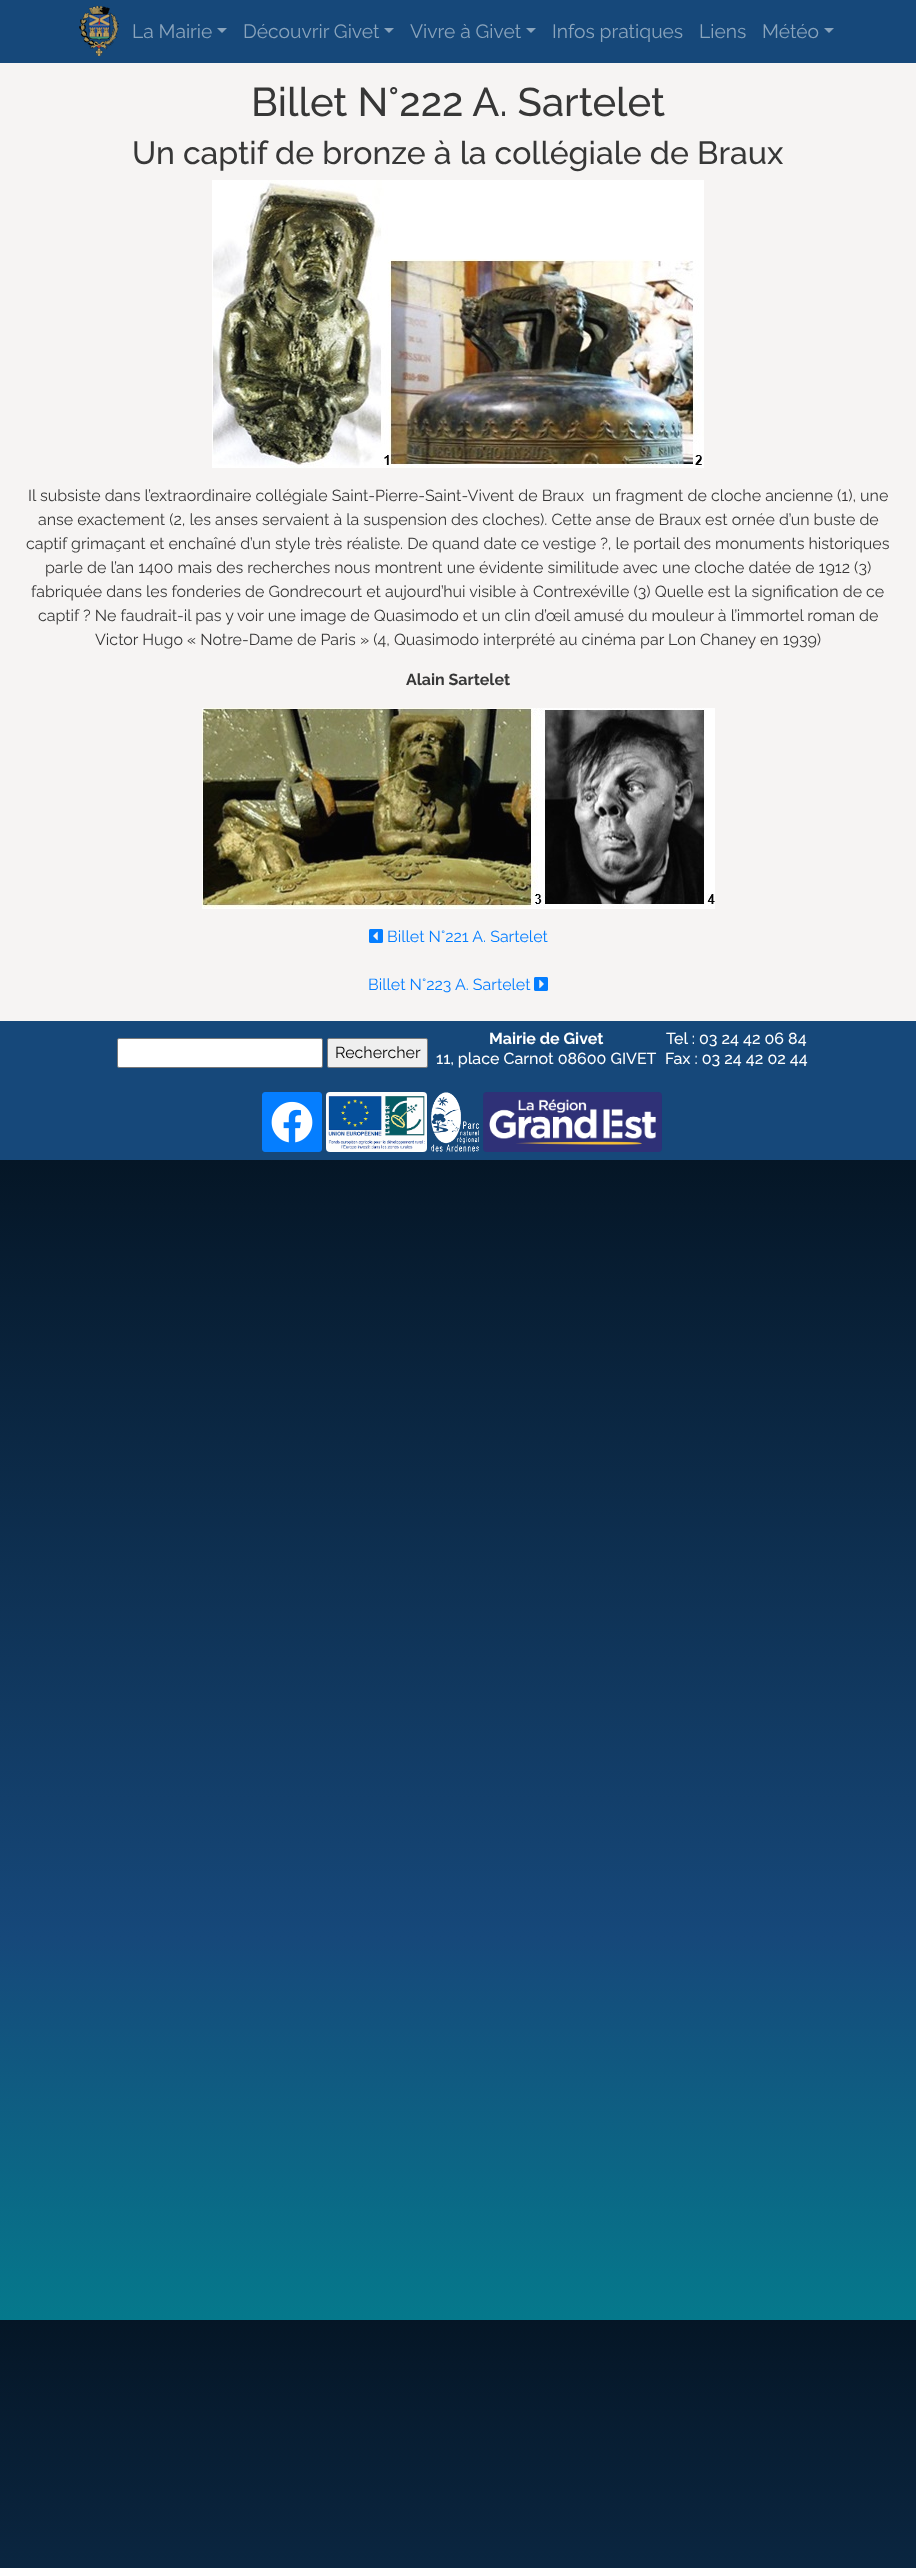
<!DOCTYPE html>
<meta charset="utf-8">
<style>body { margin: 0 } canvas { display: block }</style>
<canvas id="canvas" width="916" height="2568"></canvas>
<script type="module">
  const canvas = document.getElementById("canvas");
  const g = canvas.getContext("2d");
  g.miterLimit = 4;
  g.fontKerning = "normal";
  function drawText(s, x, y, [font, color]) {
    g.font = font;
    g.fillStyle = color;
    g.fillText(s, x, y);
  }
  function fillBox(x, y, w, h, color) {
    g.fillStyle = color;
    g.fillRect(x, y, w, h);
  }
  async function drawPicture(src, x, y, w, h) {
    const img = new Image();
    img.src = src;
    await img.decode();
    g.drawImage(img, x, y, w, h);
  }
  let gradient;

  const s1 = ["19.25px Raleway", "#8AA4BC"];
  const s2 = ["500 40px Raleway", "#373737"];
  const s3 = ["500 32px Raleway", "#373737"];
  const s4 = ["16px Raleway", "#373737"];
  const s5 = ["bold 16px Raleway", "#373737"];
  const s6 = ["16px Raleway", "#057EFF"];
  const s7 = ["16px Raleway", "#050505"];
  const s8 = ["bold 16px Raleway", "#FFFFFF"];
  const s9 = ["500 16px Raleway", "#FFFFFF"];

  fillBox(0, 0, 916, 2568, "#FFFFFF");
  gradient = g.createLinearGradient(458, 1160, 458, 2320);
  gradient.addColorStop(0, "#051626");
  gradient.addColorStop(0.67, "#16487A");
  gradient.addColorStop(1, "#05798C");
  g.fillStyle = gradient;
  g.fillRect(0, 1160, 916, 1160);
  gradient = g.createLinearGradient(458, 2320, 458, 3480);
  gradient.addColorStop(0, "#051626");
  gradient.addColorStop(0.67, "#16487A");
  gradient.addColorStop(1, "#05798C");
  g.fillStyle = gradient;
  g.fillRect(0, 2320, 916, 248);
  fillBox(0, 63, 916, 958, "#F6F4F3");
  fillBox(0, 0, 916, 63, "#16487A");
  await drawPicture("pic1.png", 79, 6, 40, 50);
  drawText("La Mairie", 132, 38, s1);
  g.beginPath();
  g.moveTo(217, 28);
  g.lineTo(227, 28);
  g.lineTo(222, 33);
  g.closePath();
  g.fill();
  drawText("Découvrir Givet", 243, 38, s1);
  g.beginPath();
  g.moveTo(384, 28);
  g.lineTo(394, 28);
  g.lineTo(389, 33);
  g.closePath();
  g.fill();
  drawText("Vivre à Givet", 410, 38, s1);
  g.beginPath();
  g.moveTo(526, 28);
  g.lineTo(536, 28);
  g.lineTo(531, 33);
  g.closePath();
  g.fill();
  drawText("Infos pratiques", 552, 38, s1);
  drawText("Liens", 699, 38, s1);
  drawText("Météo", 762, 38, s1);
  g.beginPath();
  g.moveTo(824, 28);
  g.lineTo(834, 28);
  g.lineTo(829, 33);
  g.closePath();
  g.fill();
  drawText("Billet N°222 A. Sartelet", 251, 116, s2);
  drawText("Un captif de bronze à la collégiale de Braux", 132, 164, s3);
  await drawPicture("pic2.png", 212, 180, 492, 288);
  drawText("Il subsiste dans l’extraordinaire collégiale Saint-Pierre-Saint-Vivent de Braux  un fragment de cloche ancienne (1), une", 28, 501, s4);
  drawText("anse exactement (2, les anses servaient à la suspension des cloches). Cette anse de Braux est ornée d’un buste de", 38, 525, s4);
  drawText("captif grimaçant et enchaîné d’un style très réaliste. De quand date ce vestige ?, le portail des monuments historiques", 26, 549, s4);
  drawText("parle de l’an 1400 mais des recherches nous montrent une évidente similitude avec une cloche datée de 1912 (3)", 45, 573, s4);
  drawText("fabriquée dans les fonderies de Gondrecourt et aujourd’hui visible à Contrexéville (3) Quelle est la signification de ce", 31, 597, s4);
  drawText("captif ? Ne faudrait-il pas y voir une image de Quasimodo et un clin d’œil amusé du mouleur à l’immortel roman de", 38, 621, s4);
  drawText("Victor Hugo « Notre-Dame de Paris » (4, Quasimodo interprété au cinéma par Lon Chaney en 1939)", 95, 645, s4);
  drawText("Alain Sartelet", 406, 685, s5);
  await drawPicture("pic3.png", 202, 708, 513, 201);
  await drawPicture("pic4.png", 369, 929, 14, 14);
  drawText("Billet N°221 A. Sartelet", 387, 942, s6);
  drawText("Billet N°223 A. Sartelet", 368, 990, s6);
  await drawPicture("pic5.png", 534, 977, 14, 14);
  fillBox(0, 1021, 916, 139, "#16487A");
  g.fillStyle = "#FFFFFF";
  g.beginPath();
  g.roundRect(117.5, 1038.5, 205, 29, 1.5);
  g.fill();
  g.strokeStyle = "#797979";
  g.stroke();
  g.fillStyle = "#EFEFEF";
  g.beginPath();
  g.roundRect(327.5, 1038.5, 100, 29, 1.5);
  g.fill();
  g.stroke();
  drawText("Rechercher", 335, 1058, s7);
  drawText("Mairie de Givet", 489, 1044, s8);
  drawText("11, place Carnot 08600 GIVET", 436, 1064, s9);
  drawText("Tel : 03 24 42 06 84", 666, 1044, s9);
  drawText("Fax : 03 24 42 02 44", 665, 1064, s9);
  g.fillStyle = "#057EFF";
  g.beginPath();
  g.roundRect(262.5, 1092.5, 59, 59, 2.5);
  g.fill();
  g.strokeStyle = "#057EFF";
  g.stroke();
  await drawPicture("pic6.png", 271, 1101, 42, 42);
  await drawPicture("pic7.png", 326, 1092, 101, 60);
  await drawPicture("pic8.png", 431, 1092, 48, 60);
  await drawPicture("pic9.png", 483, 1092, 179, 60);
</script>
